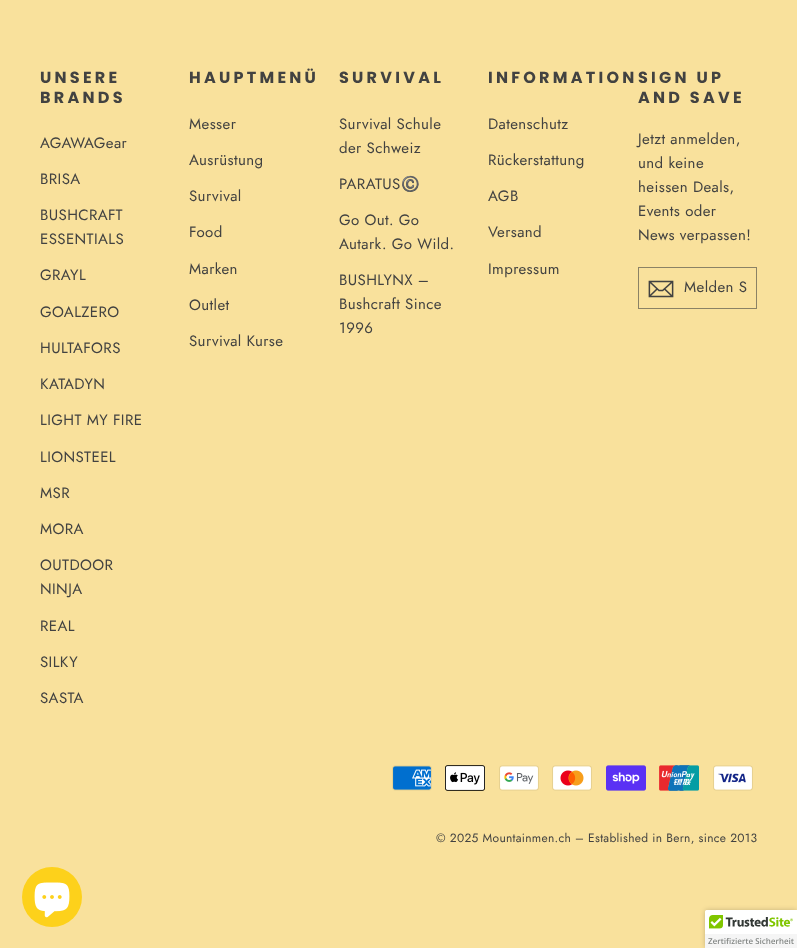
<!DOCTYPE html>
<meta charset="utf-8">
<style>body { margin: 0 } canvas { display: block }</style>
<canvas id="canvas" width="797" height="948"></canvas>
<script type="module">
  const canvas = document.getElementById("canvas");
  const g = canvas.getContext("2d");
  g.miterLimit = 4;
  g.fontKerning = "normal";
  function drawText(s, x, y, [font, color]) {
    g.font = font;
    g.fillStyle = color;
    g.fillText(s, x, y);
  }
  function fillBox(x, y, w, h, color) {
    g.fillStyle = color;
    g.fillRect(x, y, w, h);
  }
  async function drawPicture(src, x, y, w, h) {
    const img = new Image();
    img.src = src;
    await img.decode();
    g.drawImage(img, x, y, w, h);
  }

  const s1 = ["bold 16px Poppins", "#424241"];
  const s2 = ["15px Jost", "#424241"];
  const s3 = ["15px Noto Color Emoji", "#424241"];
  const s4 = ["12px Jost", "#424241"];

  fillBox(0, 0, 797, 948, "#F9E19C");
  g.letterSpacing = "3.25px";
  drawText("UNSERE", 40, 83, s1);
  drawText("BRANDS", 40, 103, s1);
  g.letterSpacing = "0.4px";
  drawText("AGAWAGear", 40, 148, s2);
  drawText("BRISA", 40, 184, s2);
  drawText("BUSHCRAFT", 40, 220, s2);
  drawText("ESSENTIALS", 40, 244, s2);
  drawText("GRAYL", 40, 280, s2);
  drawText("GOALZERO", 40, 317, s2);
  drawText("HULTAFORS", 40, 353, s2);
  drawText("KATADYN", 40, 389, s2);
  drawText("LIGHT MY FIRE", 40, 425, s2);
  drawText("LIONSTEEL", 40, 462, s2);
  drawText("MSR", 40, 498, s2);
  drawText("MORA", 40, 534, s2);
  drawText("OUTDOOR", 40, 570, s2);
  drawText("NINJA", 40, 594, s2);
  drawText("REAL", 40, 631, s2);
  drawText("SILKY", 40, 667, s2);
  drawText("SASTA", 40, 703, s2);
  g.letterSpacing = "3.25px";
  drawText("HAUPTMENÜ", 189, 83, s1);
  g.letterSpacing = "0.4px";
  drawText("Messer", 189, 129, s2);
  drawText("Ausrüstung", 189, 165, s2);
  drawText("Survival", 189, 201, s2);
  drawText("Food", 189, 237, s2);
  drawText("Marken", 189, 274, s2);
  drawText("Outlet", 189, 310, s2);
  drawText("Survival Kurse", 189, 346, s2);
  g.letterSpacing = "3.25px";
  drawText("SURVIVAL", 339, 83, s1);
  g.letterSpacing = "0.4px";
  drawText("Survival Schule", 339, 129, s2);
  drawText("der Schweiz", 339, 153, s2);
  drawText("PARATUS", 339, 189, s2);
  drawText("©️", 401, 189, s3);
  drawText("Go Out. Go", 339, 225, s2);
  drawText("Autark. Go Wild.", 339, 249, s2);
  drawText("BUSHLYNX –", 339, 285, s2);
  drawText("Bushcraft Since", 339, 309, s2);
  drawText("1996", 339, 333, s2);
  g.letterSpacing = "3.25px";
  drawText("INFORMATION", 488, 83, s1);
  g.letterSpacing = "0.4px";
  drawText("Datenschutz", 488, 129, s2);
  drawText("Rückerstattung", 488, 165, s2);
  drawText("AGB", 488, 201, s2);
  drawText("Versand", 488, 237, s2);
  drawText("Impressum", 488, 274, s2);
  g.letterSpacing = "3.25px";
  drawText("SIGN UP", 638, 83, s1);
  drawText("AND SAVE", 638, 103, s1);
  g.letterSpacing = "0.4px";
  drawText("Jetzt anmelden,", 638, 144, s2);
  drawText("und keine", 638, 168, s2);
  drawText("heissen Deals,", 638, 192, s2);
  drawText("Events oder", 638, 216, s2);
  drawText("News verpassen!", 638, 240, s2);
  g.strokeStyle = "#8B8265";
  g.strokeRect(638.5, 267.5, 118, 41);
  await drawPicture("pic1.png", 648, 280, 26, 18);
  drawText("Melden S", 684, 292, s2);
  await drawPicture("pic2.png", 392, 765, 40, 26);
  await drawPicture("pic3.png", 445, 765, 40, 26);
  await drawPicture("pic4.png", 499, 765, 40, 26);
  await drawPicture("pic5.png", 552, 765, 40, 26);
  await drawPicture("pic6.png", 606, 765, 40, 26);
  await drawPicture("pic7.png", 659, 765, 40, 26);
  await drawPicture("pic8.png", 713, 765, 40, 26);
  g.letterSpacing = "0.3px";
  drawText("© 2025 Mountainmen.ch – Established in Bern, since 2013", 436, 842, s4);
  g.fillStyle = "#FDD11B";
  g.beginPath();
  g.arc(52, 897, 30, 0, Math.PI * 2);
  g.fill();
  await drawPicture("pic9.png", 34, 882, 36, 36);
  g.fillStyle = "rgba(0, 0, 0, 0.2)";
  g.filter = "blur(2.5px)";
  g.beginPath();
  g.roundRect(705, 910, 92, 38, 2);
  g.fill();
  g.filter = "none";
  g.fillStyle = "#FFFFFF";
  g.beginPath();
  g.roundRect(705, 910, 92, 38, [2, 0, 0, 0]);
  g.fill();
  await drawPicture("pic10.png", 705, 910, 92, 38);
</script>
